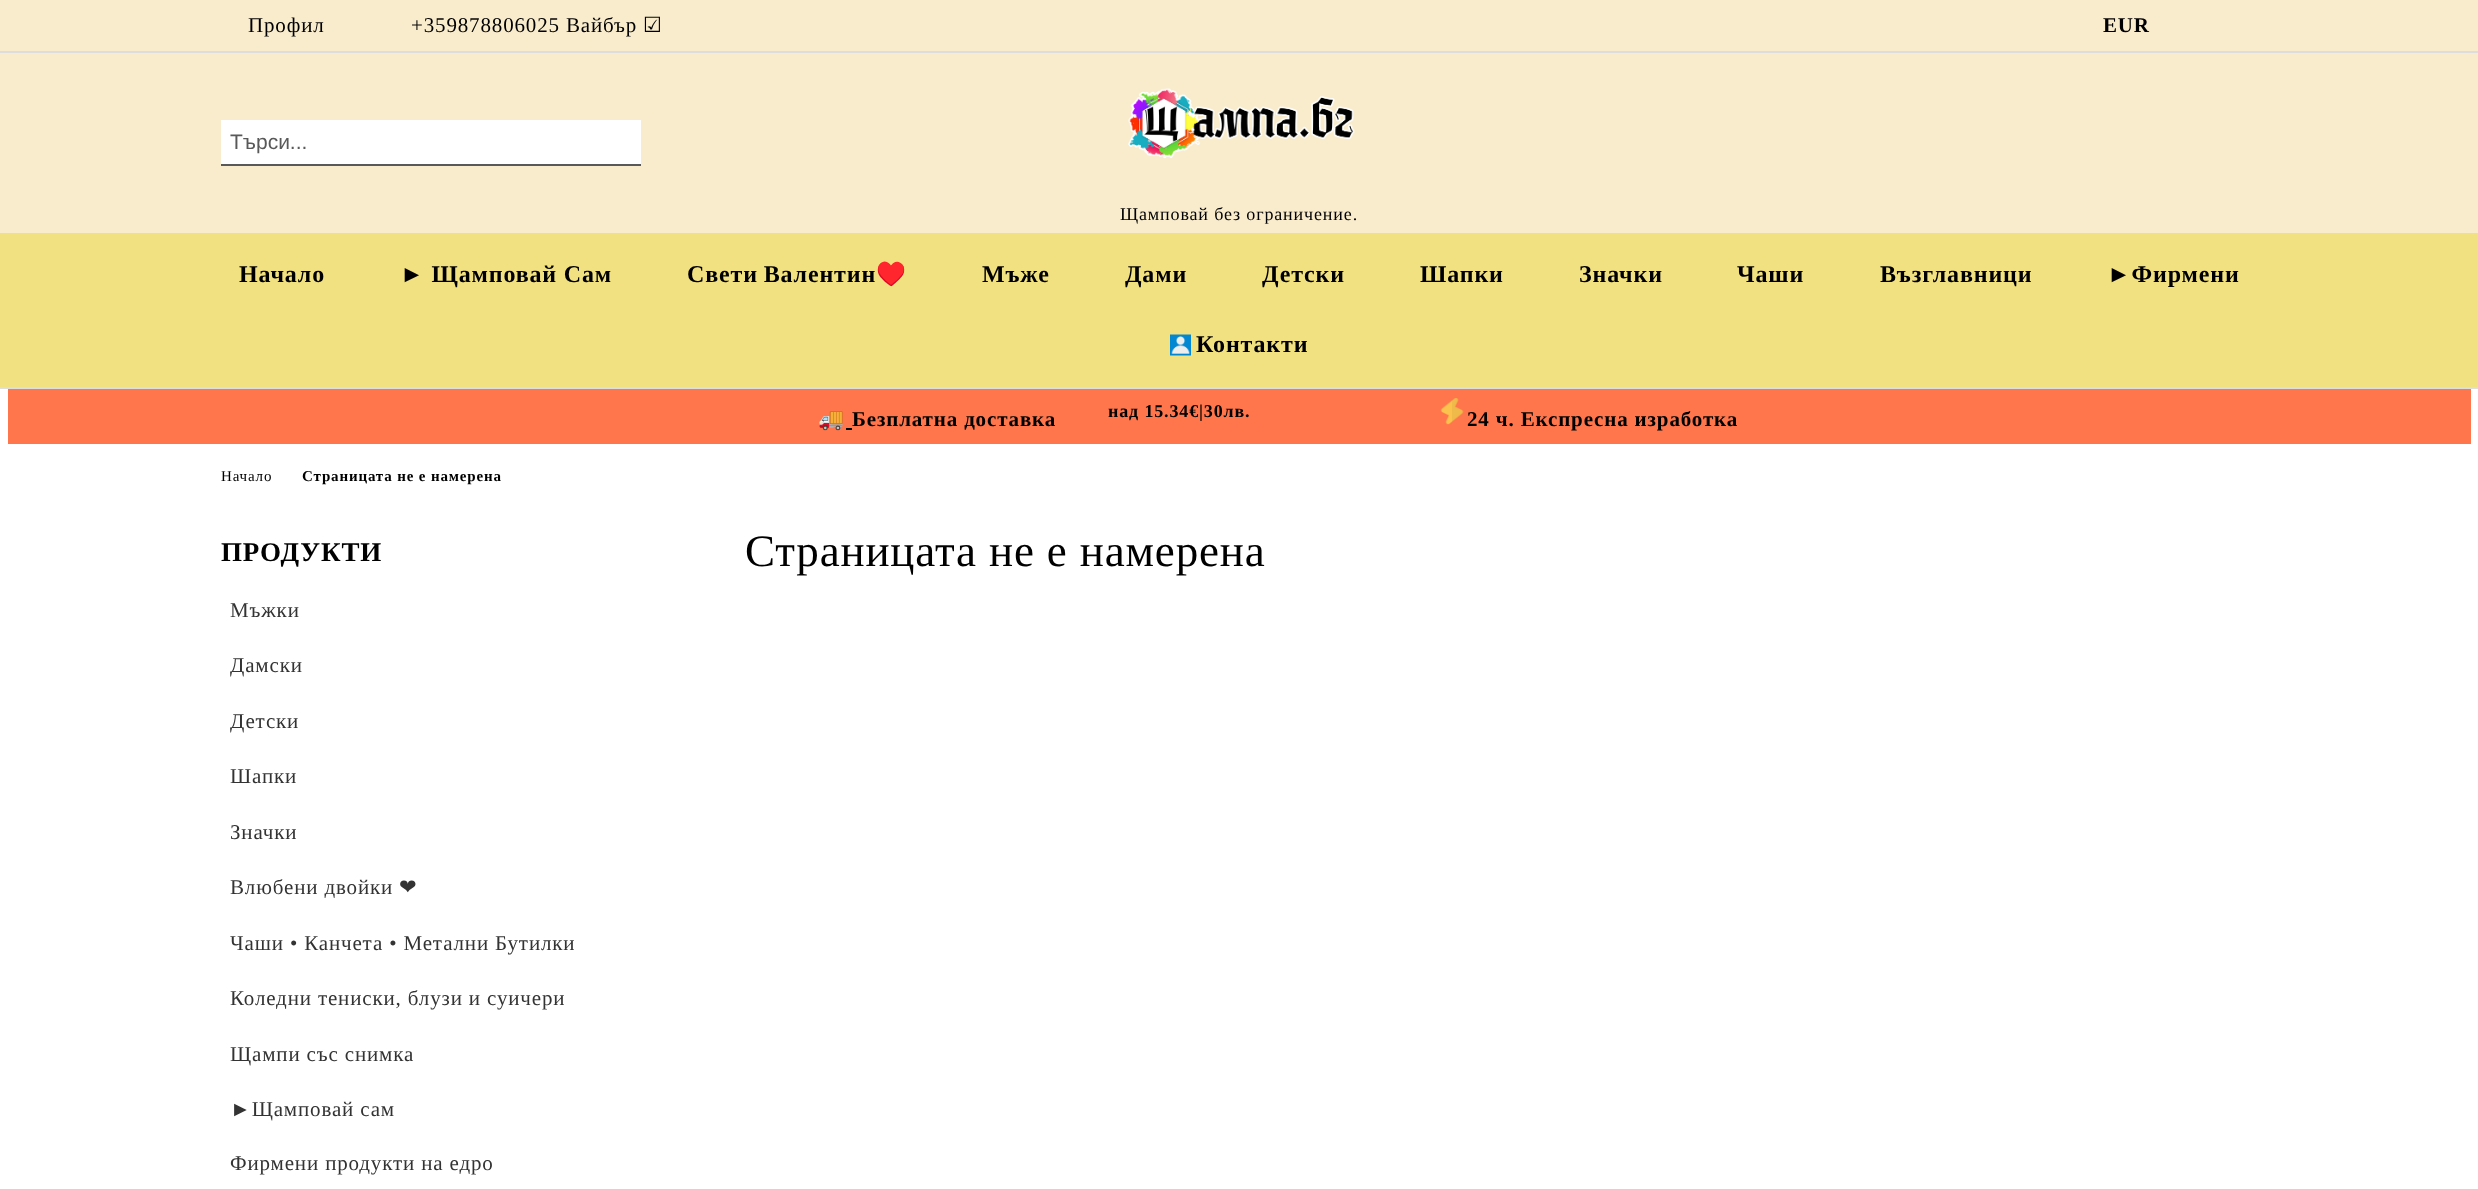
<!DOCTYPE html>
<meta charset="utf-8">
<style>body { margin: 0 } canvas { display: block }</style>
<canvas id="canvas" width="2478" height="1189"></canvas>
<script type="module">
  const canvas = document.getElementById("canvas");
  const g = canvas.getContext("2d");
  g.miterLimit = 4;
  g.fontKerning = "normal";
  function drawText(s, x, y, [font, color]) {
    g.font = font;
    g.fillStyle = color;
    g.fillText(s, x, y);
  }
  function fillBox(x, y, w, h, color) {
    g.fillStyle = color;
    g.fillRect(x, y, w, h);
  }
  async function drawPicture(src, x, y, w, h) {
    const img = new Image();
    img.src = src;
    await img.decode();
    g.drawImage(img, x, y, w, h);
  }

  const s1 = ["21px Liberation Serif", "#000000"];
  const s2 = ["21px DejaVu Sans", "#000000"];
  const s3 = ["bold 21px Liberation Serif", "#000000"];
  const s4 = ["21px Liberation Sans", "#595959"];
  const s5 = ["18px Liberation Serif", "#000000"];
  const s6 = ["bold 24px Liberation Serif", "#000000"];
  const s7 = ["bold 24px Noto Color Emoji", "#000000"];
  const s8 = ["bold 21px Noto Color Emoji", "#000000"];
  const s9 = ["bold 18px Liberation Serif", "#000000"];
  const s10 = ["15px Liberation Serif", "#000000"];
  const s11 = ["bold 15px Liberation Serif", "#000000"];
  const s12 = ["45px Liberation Serif", "#000000"];
  const s13 = ["bold 27px Liberation Serif", "#000000"];
  const s14 = ["21px Liberation Serif", "#333333"];
  const s15 = ["21px DejaVu Sans", "#333333"];

  fillBox(0, 0, 2478, 1189, "#FFFFFF");
  fillBox(0, 0, 2478, 233, "#F9ECCC");
  fillBox(0, 51, 2478, 2, "#DDDDDD");
  g.letterSpacing = "0.85px";
  drawText("Профил", 248, 32, s1);
  drawText("+359878806025 Вайбър", 411, 32, s1);
  drawText("☑", 643, 32, s2);
  drawText("EUR", 2103, 32, s3);
  fillBox(221, 120, 420, 44, "#FFFFFF");
  fillBox(221, 164, 420, 2, "#595959");
  g.letterSpacing = "0px";
  drawText("Търси...", 230, 149, s4);
  await drawPicture("pic1.png", 1128, 88, 227, 71);
  g.letterSpacing = "0.85px";
  drawText("Щамповай без ограничение.", 1120, 220, s5);
  fillBox(0, 233, 2478, 154, "#F2E180");
  fillBox(0, 387, 2478, 2, "#DDDDDD");
  drawText("Начало", 239, 282, s6);
  drawText("► Щамповай Сам", 400, 282, s6);
  g.wordSpacing = "-1px";
  drawText("Свети Валентин", 687, 282, s6);
  g.wordSpacing = "0px";
  drawText("♥️", 876, 282, s7);
  drawText("Мъже", 982, 282, s6);
  drawText("Дами", 1125, 282, s6);
  drawText("Детски", 1262, 282, s6);
  drawText("Шапки", 1420, 282, s6);
  drawText("Значки", 1579, 282, s6);
  drawText("Чаши", 1737, 282, s6);
  drawText("Възглавници", 1880, 282, s6);
  drawText("►Фирмени", 2107, 282, s6);
  await drawPicture("pic2.png", 1170, 334, 21, 22);
  drawText("Контакти", 1196, 352, s6);
  fillBox(8, 389, 2463, 55, "#FF764C");
  drawText("🚚", 818, 426, s8);
  fillBox(846, 428, 6, 2, "#000000");
  drawText("Безплатна доставка", 852, 426, s3);
  drawText("над 15.34€|30лв.", 1108, 417, s9);
  await drawPicture("pic3.png", 1440, 398, 24, 27);
  drawText("24 ч. Експресна изработка", 1467, 426, s3);
  drawText("Начало", 221, 481, s10);
  drawText("Страницата не е намерена", 302, 481, s11);
  drawText("Страницата не е намерена", 745, 566, s12);
  drawText("ПРОДУКТИ", 221, 561, s13);
  drawText("Мъжки", 230, 617, s14);
  drawText("Дамски", 230, 672, s14);
  drawText("Детски", 230, 728, s14);
  drawText("Шапки", 230, 783, s14);
  drawText("Значки", 230, 839, s14);
  drawText("Влюбени двойки", 230, 894, s14);
  drawText("❤", 399, 894, s15);
  drawText("Чаши • Канчета • Метални Бутилки", 230, 950, s14);
  drawText("Коледни тениски, блузи и суичери", 230, 1005, s14);
  drawText("Щампи със снимка", 230, 1061, s14);
  drawText("►Щамповай сам", 230, 1116, s14);
  drawText("Фирмени продукти на едро", 230, 1170, s14);
</script>
